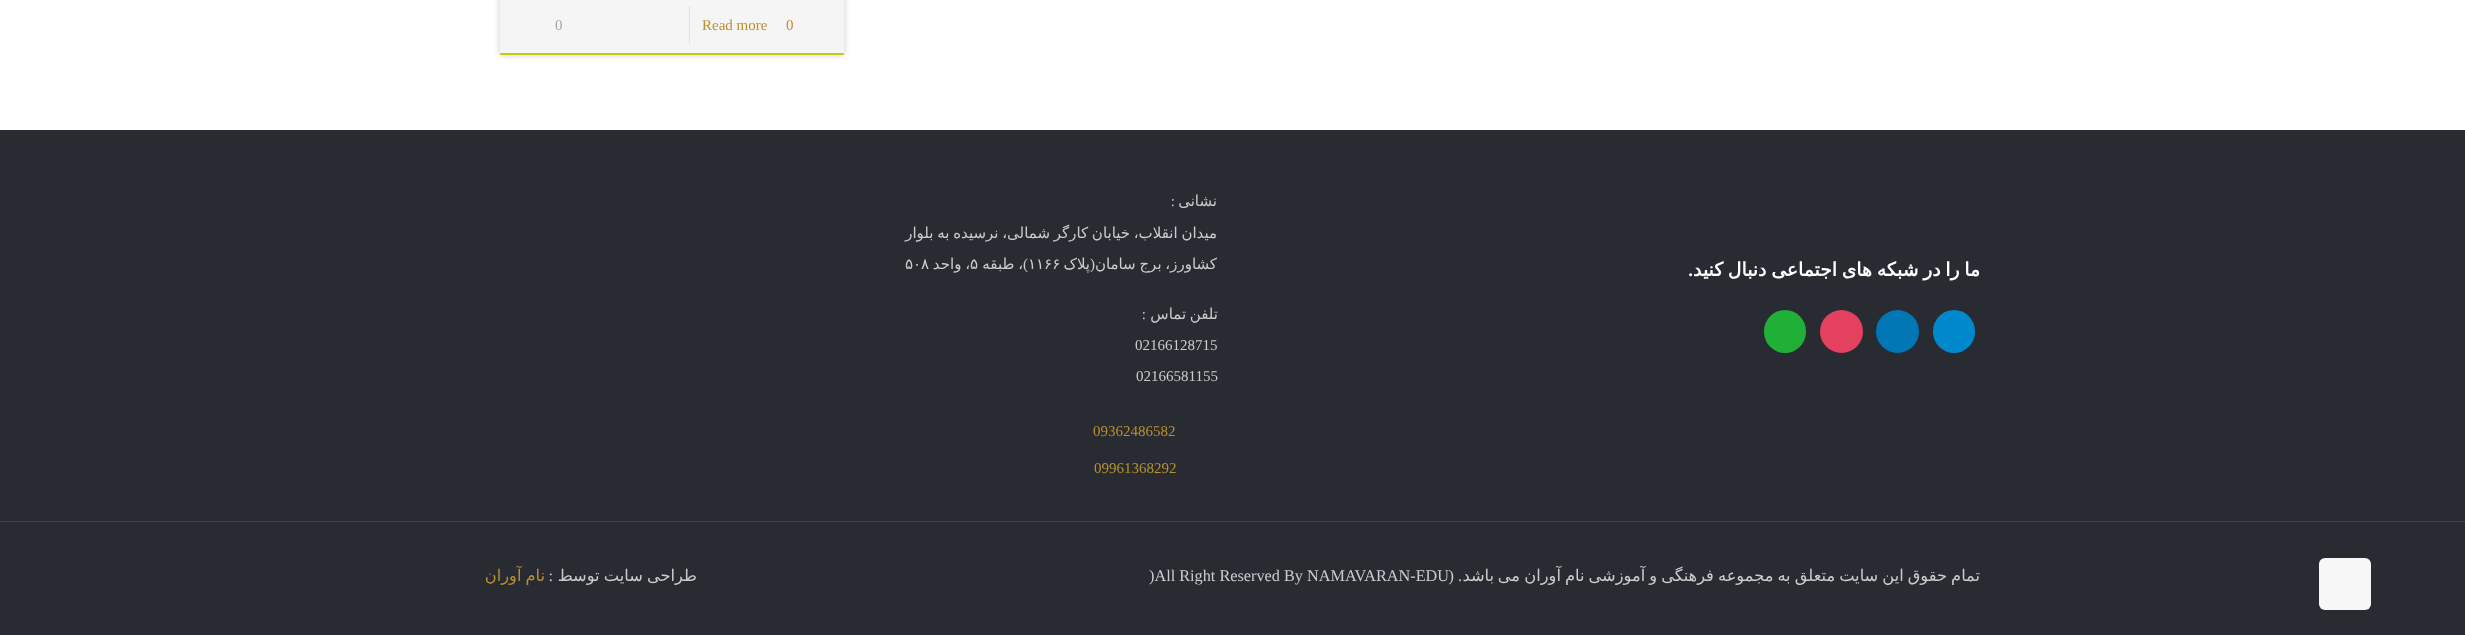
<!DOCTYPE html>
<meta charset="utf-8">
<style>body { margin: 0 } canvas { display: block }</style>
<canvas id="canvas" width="2465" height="635"></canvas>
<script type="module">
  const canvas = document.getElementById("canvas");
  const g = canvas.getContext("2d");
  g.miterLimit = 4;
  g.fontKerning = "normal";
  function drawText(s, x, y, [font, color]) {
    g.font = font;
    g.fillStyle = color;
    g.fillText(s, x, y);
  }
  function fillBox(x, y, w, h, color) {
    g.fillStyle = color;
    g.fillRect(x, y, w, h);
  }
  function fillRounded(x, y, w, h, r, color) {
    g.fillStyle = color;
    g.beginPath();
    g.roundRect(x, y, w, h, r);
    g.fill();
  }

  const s1 = ["15px Liberation Serif", "#B8902F"];
  const s2 = ["15px Liberation Serif", "#A8A8A8"];
  const s3 = ["bold 18.75px DejaVu Sans", "#FFFFFF"];
  const s4 = ["bold 18.75px Liberation Serif", "#FFFFFF"];
  const s5 = ["15px DejaVu Sans", "#CCCCCC"];
  const s6 = ["15px Liberation Serif", "#CCCCCC"];
  const s7 = ["16.25px DejaVu Sans", "#CCCCCC"];
  const s8 = ["16.25px Liberation Serif", "#CCCCCC"];
  const s9 = ["16.25px DejaVu Sans", "#B8902F"];

  fillBox(0, 0, 2465, 635, "#FFFFFF");
  fillBox(0, 130, 2465, 505, "#292B33");
  fillRounded(2319, 558, 52, 52, 6, "#F7F7F7");
  g.fillStyle = "#CCCCCC";
  g.filter = "blur(3px)";
  g.beginPath();
  g.rect(500, -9, 344, 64);
  g.fill();
  g.filter = "none";
  fillBox(500, 0, 344, 53, "#F5F5F5");
  fillBox(500, 53, 344, 2, "#BFCD0B");
  fillBox(689, 6, 1, 38, "#E1E1E1");
  drawText("0", 786, 30, s1);
  drawText("Read more", 702, 30, s1);
  drawText("0", 555, 30, s2);
  g.wordSpacing = "-1.25px";
  g.direction = "rtl";
  drawText("ما را در شبکه های اجتماعی دنبال کنید", 1980, 276, s3);
  g.wordSpacing = "0px";
  drawText(".", 1693, 276, s4);
  fillRounded(1933, 310, 42, 43, 21, "#0088CC");
  g.fillStyle = "#0077B5";
  g.beginPath();
  g.arc(1897.5, 331.5, 21.5, 0, Math.PI * 2);
  g.fill();
  g.fillStyle = "#E4405F";
  g.beginPath();
  g.arc(1841.5, 331.5, 21.5, 0, Math.PI * 2);
  g.fill();
  fillRounded(1764, 310, 42, 43, 21, "#20B038");
  drawText("نشانی", 1217, 206, s5);
  drawText(":", 1175, 206, s6);
  g.wordSpacing = "-1px";
  drawText("میدان انقلاب، خیابان کارگر شمالی، نرسیده به بلوار", 1217, 238, s5);
  drawText("کشاورز، برج سامان", 1217, 269, s5);
  g.wordSpacing = "0px";
  drawText("(", 1095, 269, s6);
  drawText("پلاک", 1090, 269, s5);
  g.direction = "ltr";
  drawText("۱۱۶۶", 1028, 269, s5);
  g.direction = "rtl";
  drawText(")", 1028, 269, s6);
  g.wordSpacing = "-1px";
  drawText("، طبقه", 1023, 269, s5);
  g.wordSpacing = "0px";
  g.direction = "ltr";
  drawText("۵", 970, 269, s5);
  g.wordSpacing = "-1px";
  g.direction = "rtl";
  drawText("، واحد", 970, 269, s5);
  g.wordSpacing = "0px";
  g.direction = "ltr";
  drawText("۵۰۸", 905, 269, s5);
  g.wordSpacing = "-1px";
  g.direction = "rtl";
  drawText("تلفن تماس", 1218, 319, s5);
  g.wordSpacing = "0px";
  drawText(":", 1146, 319, s6);
  g.direction = "ltr";
  drawText("02166128715", 1135, 350, s6);
  drawText("02166581155", 1136, 381, s6);
  drawText("09362486582", 1093, 436, s1);
  drawText("09961368292", 1094, 473, s1);
  fillBox(0, 521, 2465, 1, "#3E4047");
  g.wordSpacing = "-1.1px";
  g.direction = "rtl";
  drawText("تمام حقوق این سایت متعلق به مجموعه فرهنگی و آموزشی نام آوران", 1980, 581, s7);
  g.wordSpacing = "0px";
  drawText("می", 1520, 581, s7);
  drawText("باشد", 1494, 581, s7);
  drawText(". (", 1462, 581, s8);
  g.direction = "ltr";
  drawText(")All Right Reserved By NAMAVARAN-EDU", 1149, 581, s8);
  g.wordSpacing = "-1px";
  g.direction = "rtl";
  drawText("طراحی سایت توسط", 697, 581, s7);
  g.wordSpacing = "0px";
  drawText(":", 553, 581, s8);
  g.wordSpacing = "-1.1px";
  drawText("نام آوران", 545, 581, s9);
</script>
